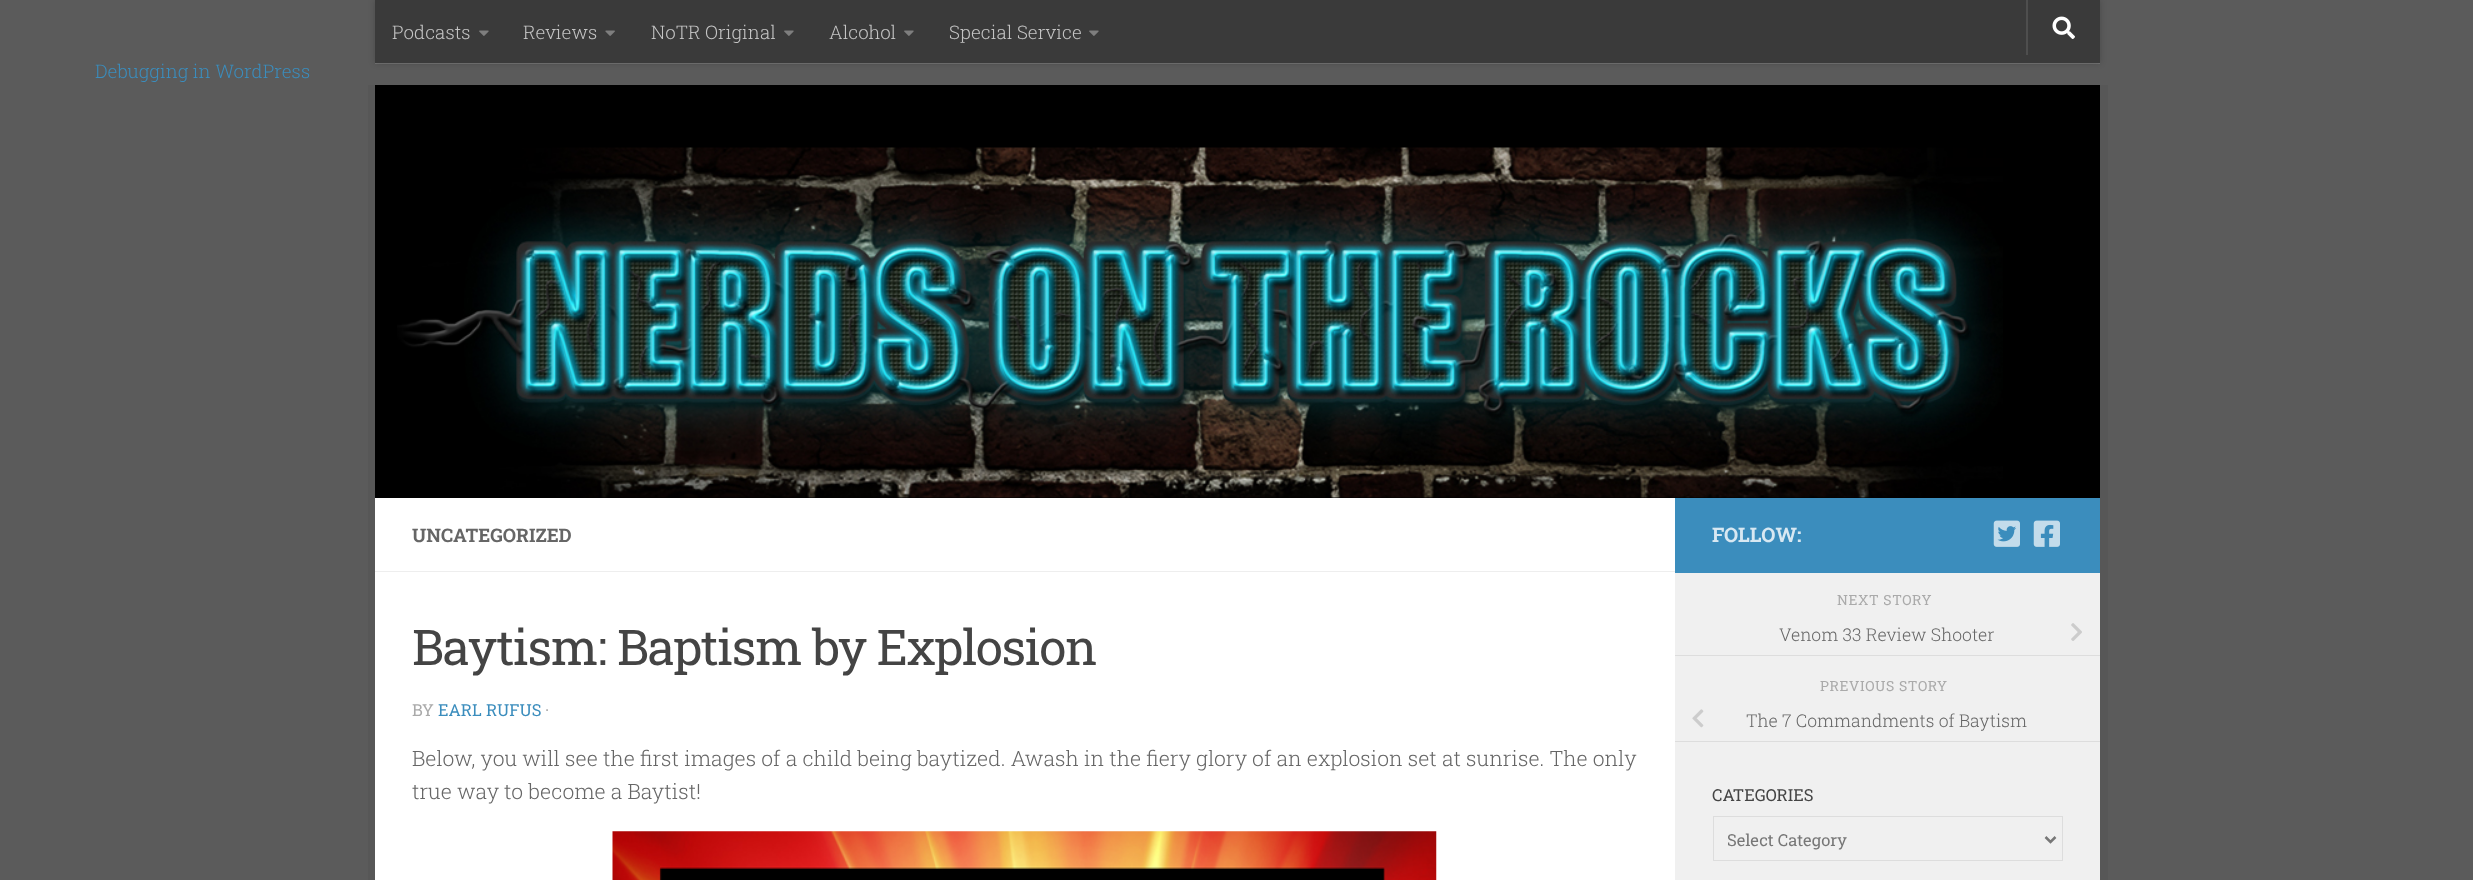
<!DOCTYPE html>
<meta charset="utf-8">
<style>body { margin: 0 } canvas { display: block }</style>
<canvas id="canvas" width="2473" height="880"></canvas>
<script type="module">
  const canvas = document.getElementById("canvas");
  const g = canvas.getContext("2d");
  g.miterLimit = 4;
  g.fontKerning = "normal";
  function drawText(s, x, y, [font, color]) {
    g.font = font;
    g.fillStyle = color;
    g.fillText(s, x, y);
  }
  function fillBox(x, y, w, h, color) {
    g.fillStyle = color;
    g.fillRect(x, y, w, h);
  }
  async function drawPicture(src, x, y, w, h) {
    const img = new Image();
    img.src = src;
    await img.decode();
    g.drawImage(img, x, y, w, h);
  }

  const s1 = ["300 18.75px Roboto Slab", "#3B8DBD"];
  const s2 = ["300 18.75px Roboto Slab", "#C4C4C4"];
  const s3 = ["bold 18.75px Roboto Slab", "#666666"];
  const s4 = ["49.25px Roboto Slab", "#444444"];
  const s5 = ["16.5px Roboto Slab", "#AAAAAA"];
  const s6 = ["16.5px Roboto Slab", "#3B8DBD"];
  const s7 = ["300 21.15px Roboto Slab", "#666666"];
  const s8 = ["bold 20px Roboto Slab", "#D8E8F2"];
  const s9 = ["14px Roboto Slab", "#AAAAAA"];
  const s10 = ["300 17.6px Roboto Slab", "#666666"];
  const s11 = ["16.5px Roboto Slab", "#444444"];
  const s12 = ["16.5px Roboto Slab", "#777777"];

  fillBox(0, 0, 2473, 880, "#5B5B5B");
  drawText("Debugging in WordPress", 95, 78, s1);
  fillBox(368, 85, 7, 795, "#575757");
  fillBox(2100, 85, 8, 795, "#575757");
  fillBox(375, 85, 1725, 413, "#000000");
  fillBox(375, 63, 1725, 1, "#747474");
  g.fillStyle = "rgba(0, 0, 0, 0.2)";
  g.filter = "blur(3px)";
  g.beginPath();
  g.rect(375, 0, 1725, 63);
  g.fill();
  g.filter = "none";
  fillBox(375, 0, 1725, 63, "#3A3A3A");
  drawText("Podcasts", 392, 39, s2);
  await drawPicture("pic1.png", 479, 30, 10, 6);
  drawText("Reviews", 523, 39, s2);
  await drawPicture("pic2.png", 605, 30, 10, 6);
  drawText("NoTR Original", 651, 39, s2);
  await drawPicture("pic1.png", 784, 30, 10, 6);
  drawText("Alcohol", 829, 39, s2);
  await drawPicture("pic1.png", 904, 30, 10, 6);
  drawText("Special Service", 949, 39, s2);
  await drawPicture("pic1.png", 1089, 30, 10, 6);
  fillBox(2026, 0, 2, 55, "#4E4E4E");
  await drawPicture("pic3.png", 2052, 16, 23, 23);
  await drawPicture("pic4.png", 397, 147, 1606, 351);
  fillBox(375, 498, 1300, 382, "#FFFFFF");
  fillBox(375, 571, 1300, 1, "#EEEEEE");
  drawText("UNCATEGORIZED", 412, 542, s3);
  g.letterSpacing = "-1.25px";
  drawText("Baytism: Baptism by Explosion", 412, 665, s4);
  g.letterSpacing = "0px";
  drawText("BY", 412, 716, s5);
  drawText("EARL RUFUS", 438, 716, s6);
  drawText("·", 545, 716, s5);
  drawText("Below, you will see the first images of a child being baytized. Awash in the fiery glory of an explosion set at sunrise. The only", 412, 766, s7);
  drawText("true way to become a Baytist!", 412, 799, s7);
  await drawPicture("pic5.png", 612, 831, 825, 49);
  fillBox(1675, 498, 425, 75, "#3B8DBD");
  drawText("FOLLOW:", 1712, 542, s8);
  await drawPicture("pic6.png", 1993, 520, 27, 27);
  await drawPicture("pic7.png", 2033, 520, 27, 27);
  fillBox(1675, 573, 425, 307, "#F0F0F0");
  g.letterSpacing = "0.6px";
  drawText("NEXT STORY", 1837, 605, s9);
  fillBox(1675, 655, 425, 1, "#DDDDDD");
  g.letterSpacing = "0px";
  drawText("Venom 33 Review Shooter", 1779, 641, s10);
  await drawPicture("pic8.png", 2071, 623, 11, 18);
  g.letterSpacing = "0.6px";
  drawText("PREVIOUS STORY", 1820, 691, s9);
  fillBox(1675, 741, 425, 1, "#DDDDDD");
  await drawPicture("pic9.png", 1692, 709, 12, 19);
  g.letterSpacing = "0px";
  drawText("The 7 Commandments of Baytism", 1746, 727, s10);
  drawText("CATEGORIES", 1712, 801, s11);
  g.strokeStyle = "#DDDDDD";
  g.strokeRect(1713.5, 816.5, 349, 44);
  g.beginPath();
  g.moveTo(2045.5, 837);
  g.lineTo(2050.5, 842);
  g.lineTo(2055.5, 837);
  g.strokeStyle = "#777777";
  g.lineWidth = 2.5;
  g.stroke();
  g.save();
  g.beginPath();
  g.rect(1728, 826, 305, 25);
  g.clip();
  drawText("Select Category", 1727, 846, s12);
  g.restore();
</script>
